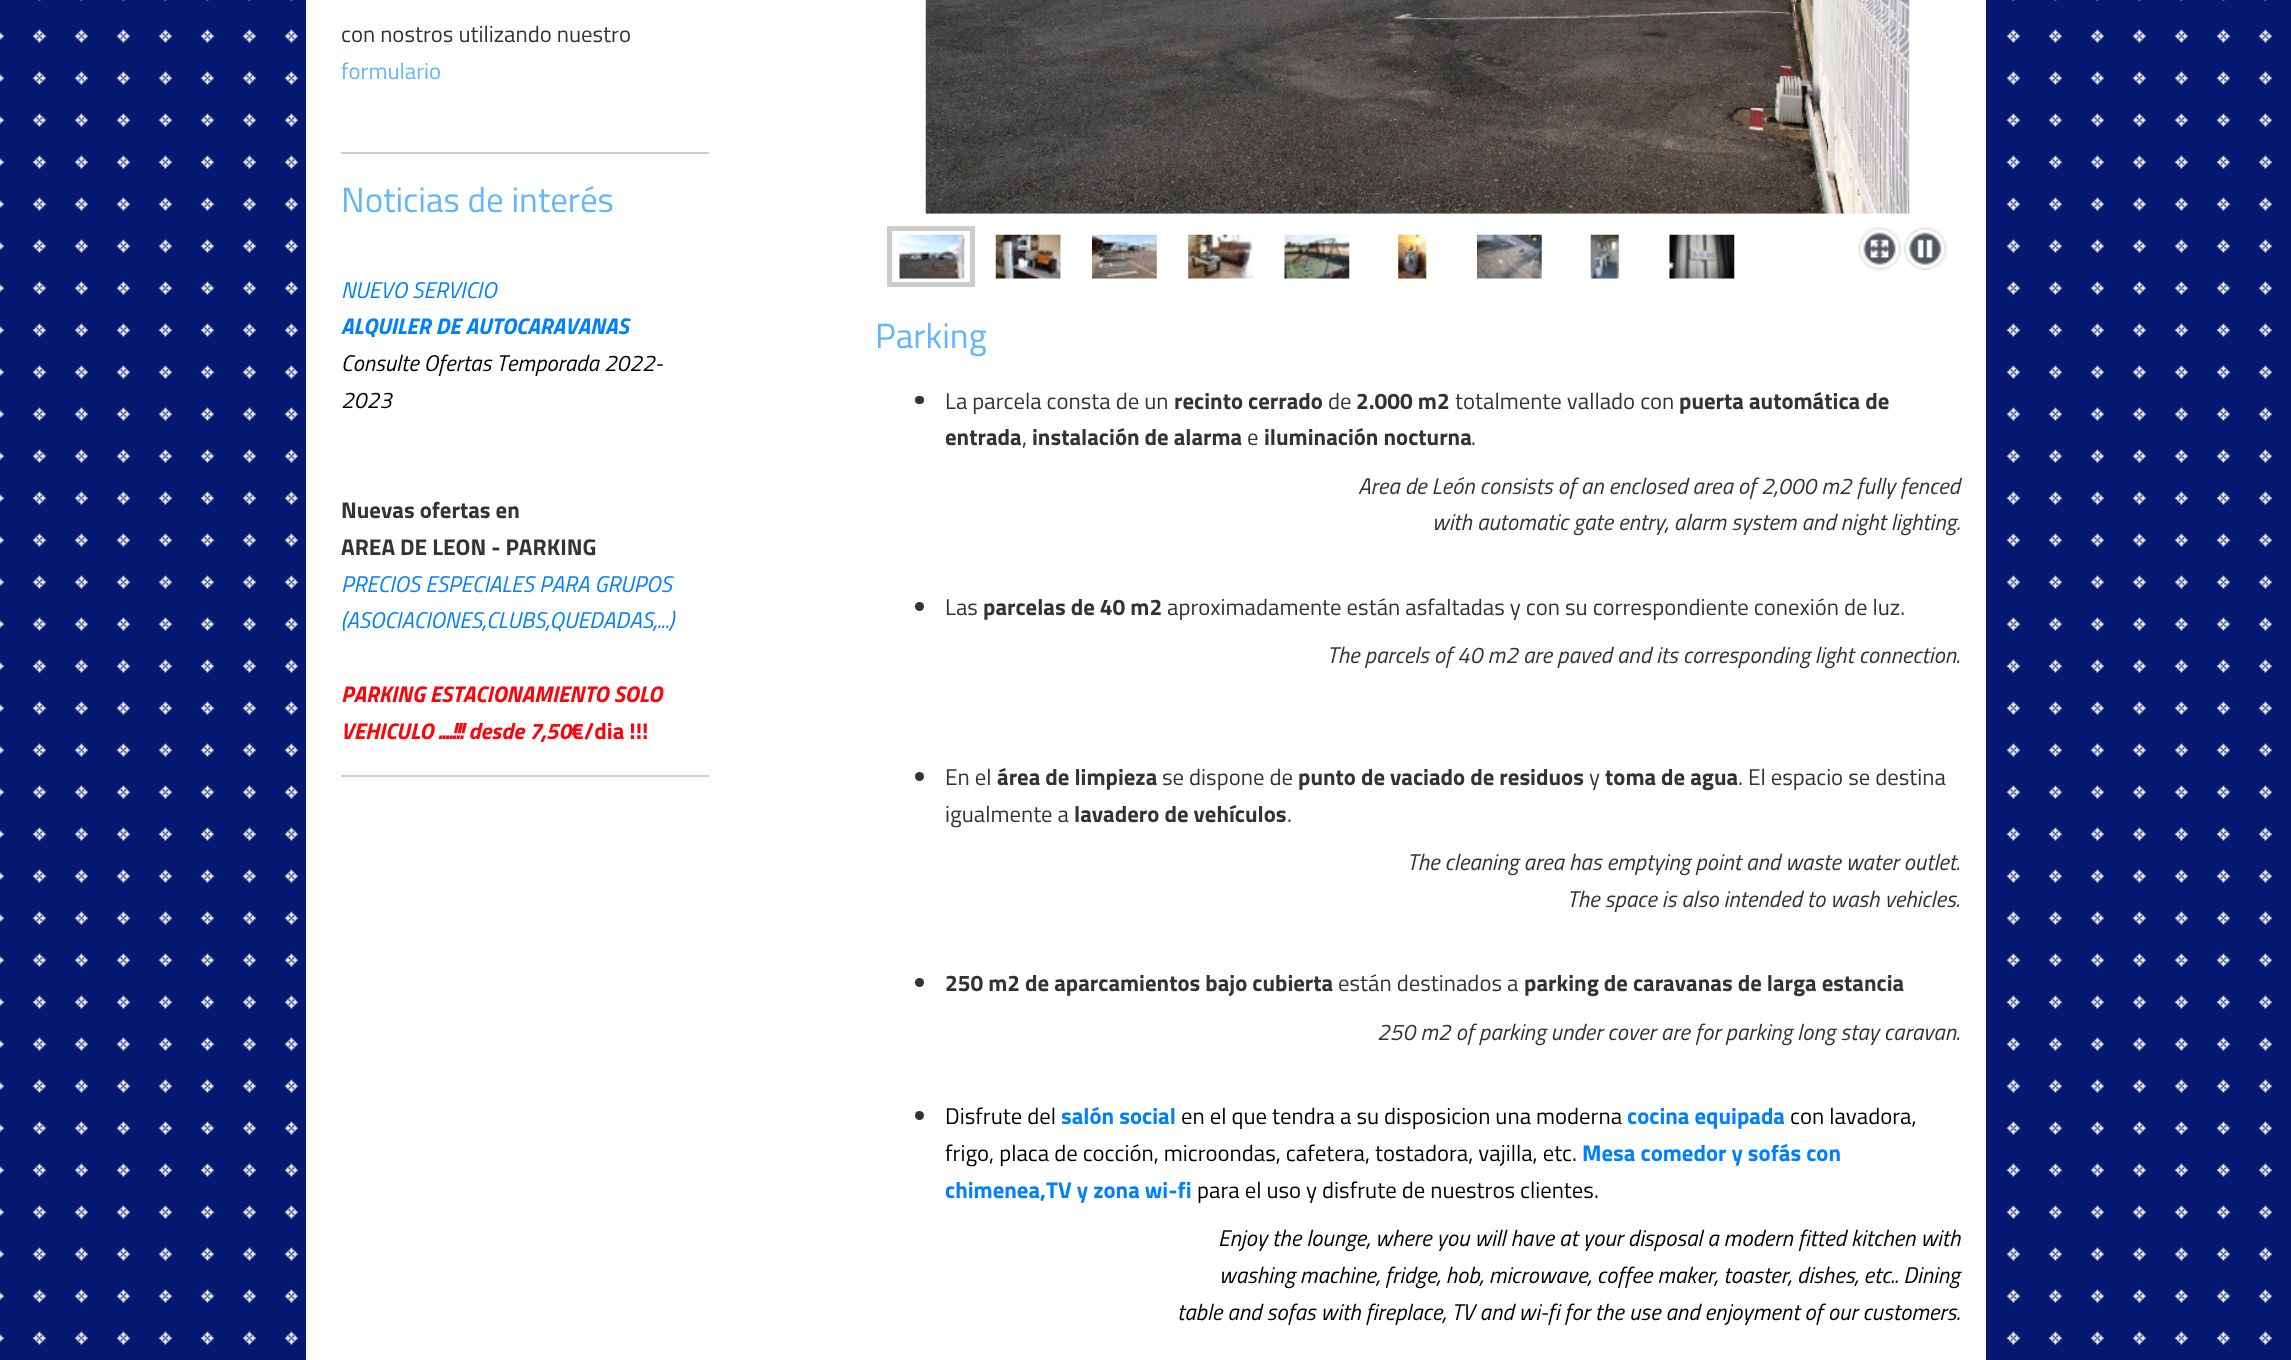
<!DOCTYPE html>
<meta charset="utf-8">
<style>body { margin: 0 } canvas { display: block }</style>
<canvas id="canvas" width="2291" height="1360"></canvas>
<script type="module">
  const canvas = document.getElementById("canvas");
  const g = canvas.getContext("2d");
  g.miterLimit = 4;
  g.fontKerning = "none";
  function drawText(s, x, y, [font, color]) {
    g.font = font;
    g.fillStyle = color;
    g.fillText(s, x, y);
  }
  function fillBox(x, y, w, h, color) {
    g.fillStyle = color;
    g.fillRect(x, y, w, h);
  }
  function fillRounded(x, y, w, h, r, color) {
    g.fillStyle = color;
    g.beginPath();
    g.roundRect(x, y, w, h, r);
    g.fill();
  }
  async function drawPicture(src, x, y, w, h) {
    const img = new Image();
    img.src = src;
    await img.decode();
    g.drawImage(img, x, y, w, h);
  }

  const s1 = ["22.75px Titillium Web", "#333333"];
  const s2 = ["22.75px Titillium Web", "#60B6FF"];
  const s3 = ["35px Titillium Web", "#60B6FF"];
  const s4 = ["italic 22.75px Titillium Web", "#0080FF"];
  const s5 = ["italic bold 22.75px Titillium Web", "#0080FF"];
  const s6 = ["italic 22.75px Titillium Web", "#000000"];
  const s7 = ["bold 22.75px Titillium Web", "#333333"];
  const s8 = ["italic bold 22.75px Titillium Web", "#FD040A"];
  const s9 = ["bold 22.75px Titillium Web", "#FD040A"];
  const s10 = ["italic 22.75px Titillium Web", "#333333"];
  const s11 = ["22.75px Titillium Web", "#000000"];
  const s12 = ["bold 22.75px Titillium Web", "#0080FF"];

  fillBox(0, 0, 2291, 1360, "#051972");
  await drawPicture("pic1.png", 0, 0, 2272, 1345);
  fillBox(306, 0, 1680, 1360, "#FFFFFF");
  drawText("con nostros utilizando nuestro", 341, 42, s1);
  drawText("formulario", 341, 79, s2);
  fillBox(341, 152, 368, 2, "#CCCCCC");
  drawText("Noticias de interés", 341, 212, s3);
  drawText("NUEVO SERVICIO", 341, 298, s4);
  drawText("ALQUILER DE AUTOCARAVANAS", 341, 334, s5);
  drawText("Consulte Ofertas Temporada 2022-", 341, 371, s6);
  drawText("2023", 341, 408, s6);
  drawText("Nuevas ofertas en", 341, 518, s7);
  drawText("AREA DE LEON - PARKING", 341, 555, s7);
  drawText("PRECIOS ESPECIALES PARA GRUPOS", 341, 592, s4);
  drawText("(ASOCIACIONES,CLUBS,QUEDADAS,...)", 341, 628, s4);
  drawText("PARKING ESTACIONAMIENTO SOLO", 341, 702, s8);
  drawText("VEHICULO ....!!! desde 7,50", 341, 739, s8);
  drawText("€/dia !!!", 571, 739, s9);
  fillBox(341, 775, 368, 2, "#CCCCCC");
  await drawPicture("pic2.png", 925, 0, 985, 214);
  g.strokeStyle = "#CCCCCC";
  g.lineWidth = 5;
  g.strokeRect(889.5, 228.5, 83, 56);
  await drawPicture("pic3.png", 899, 234, 66, 45);
  await drawPicture("pic4.png", 995, 234, 66, 45);
  await drawPicture("pic5.png", 1092, 234, 65, 45);
  await drawPicture("pic6.png", 1188, 234, 65, 45);
  await drawPicture("pic7.png", 1284, 234, 66, 45);
  await drawPicture("pic8.png", 1398, 234, 29, 45);
  await drawPicture("pic9.png", 1477, 234, 65, 45);
  await drawPicture("pic10.png", 1590, 234, 29, 45);
  await drawPicture("pic11.png", 1669, 234, 66, 45);
  await drawPicture("pic12.png", 1858, 227, 44, 44);
  await drawPicture("pic13.png", 1903, 227, 45, 44);
  drawText("Parking", 875, 348, s3);
  fillRounded(915, 396, 9, 8, 4, "#333333");
  drawText("La parcela consta de un", 945, 409, s1);
  drawText("recinto cerrado", 1174, 409, s7);
  drawText("de", 1328, 409, s1);
  drawText("2.000 m2", 1356, 409, s7);
  drawText("totalmente vallado con", 1455, 409, s1);
  drawText("puerta automática de", 1679, 409, s7);
  drawText("entrada", 945, 445, s7);
  drawText(",", 1022, 445, s1);
  drawText("instalación de alarma", 1032, 445, s7);
  drawText("e", 1247, 445, s1);
  drawText("iluminación nocturna", 1264, 445, s7);
  drawText(".", 1471, 445, s1);
  drawText("Area de León consists of an enclosed area of 2,000 m2 fully fenced", 1358, 494, s10);
  drawText("with automatic gate entry, alarm system and night lighting.", 1432, 530, s10);
  g.beginPath();
  g.arc(919.5, 606.5, 4.5, 0, Math.PI * 2);
  g.fill();
  drawText("Las", 945, 615, s1);
  drawText("parcelas de 40 m2", 983, 615, s7);
  drawText("aproximadamente están asfaltadas y con su correspondiente conexión de luz.", 1167, 615, s1);
  drawText("The parcels of 40 m2 are paved and its corresponding light connection.", 1327, 663, s10);
  g.beginPath();
  g.arc(919.5, 776.5, 4.5, 0, Math.PI * 2);
  g.fill();
  drawText("En el", 945, 785, s1);
  drawText("área de limpieza", 997, 785, s7);
  drawText("se dispone de", 1162, 785, s1);
  drawText("punto de vaciado de residuos", 1298, 785, s7);
  drawText("y", 1589, 785, s1);
  drawText("toma de agua", 1605, 785, s7);
  drawText(". El espacio se destina", 1738, 785, s1);
  drawText("igualmente a", 945, 822, s1);
  drawText("lavadero de vehículos", 1074, 822, s7);
  drawText(".", 1287, 822, s1);
  drawText("The cleaning area has emptying point and waste water outlet.", 1407, 870, s10);
  drawText("The space is also intended to wash vehicles.", 1567, 907, s10);
  g.beginPath();
  g.arc(919.5, 982.5, 4.5, 0, Math.PI * 2);
  g.fill();
  drawText("250 m2 de aparcamientos bajo cubierta", 945, 991, s7);
  drawText("están destinados a", 1338, 991, s1);
  drawText("parking de caravanas de larga estancia", 1524, 991, s7);
  drawText("250 m2 of parking under cover are for parking long stay caravan.", 1377, 1040, s10);
  g.beginPath();
  g.arc(919.5, 1115.5, 4.5, 0, Math.PI * 2);
  g.fill();
  drawText("Disfrute del", 945, 1124, s11);
  drawText("salón social", 1061, 1124, s12);
  drawText("en el que tendra a su disposicion una moderna", 1181, 1124, s11);
  drawText("cocina equipada", 1627, 1124, s12);
  drawText("con lavadora,", 1790, 1124, s11);
  drawText("frigo, placa de cocción, microondas, cafetera, tostadora, vajilla, etc.", 945, 1161, s11);
  drawText("Mesa comedor y sofás con", 1582, 1161, s12);
  drawText("chimenea,TV y zona wi-fi", 945, 1198, s12);
  drawText("para el uso y disfrute de nuestros clientes.", 1197, 1198, s11);
  drawText("  Enjoy the lounge, where you will have at your disposal a modern fitted kitchen with", 1208, 1246, s6);
  drawText("washing machine, fridge, hob, microwave, coffee maker, toaster,", 1219, 1283, s6);
  drawText("dishes, etc.. Dining", 1797, 1283, s6);
  drawText("table and sofas with fireplace, TV and wi-fi for the use and enjoyment of our customers.", 1177, 1320, s6);
</script>
